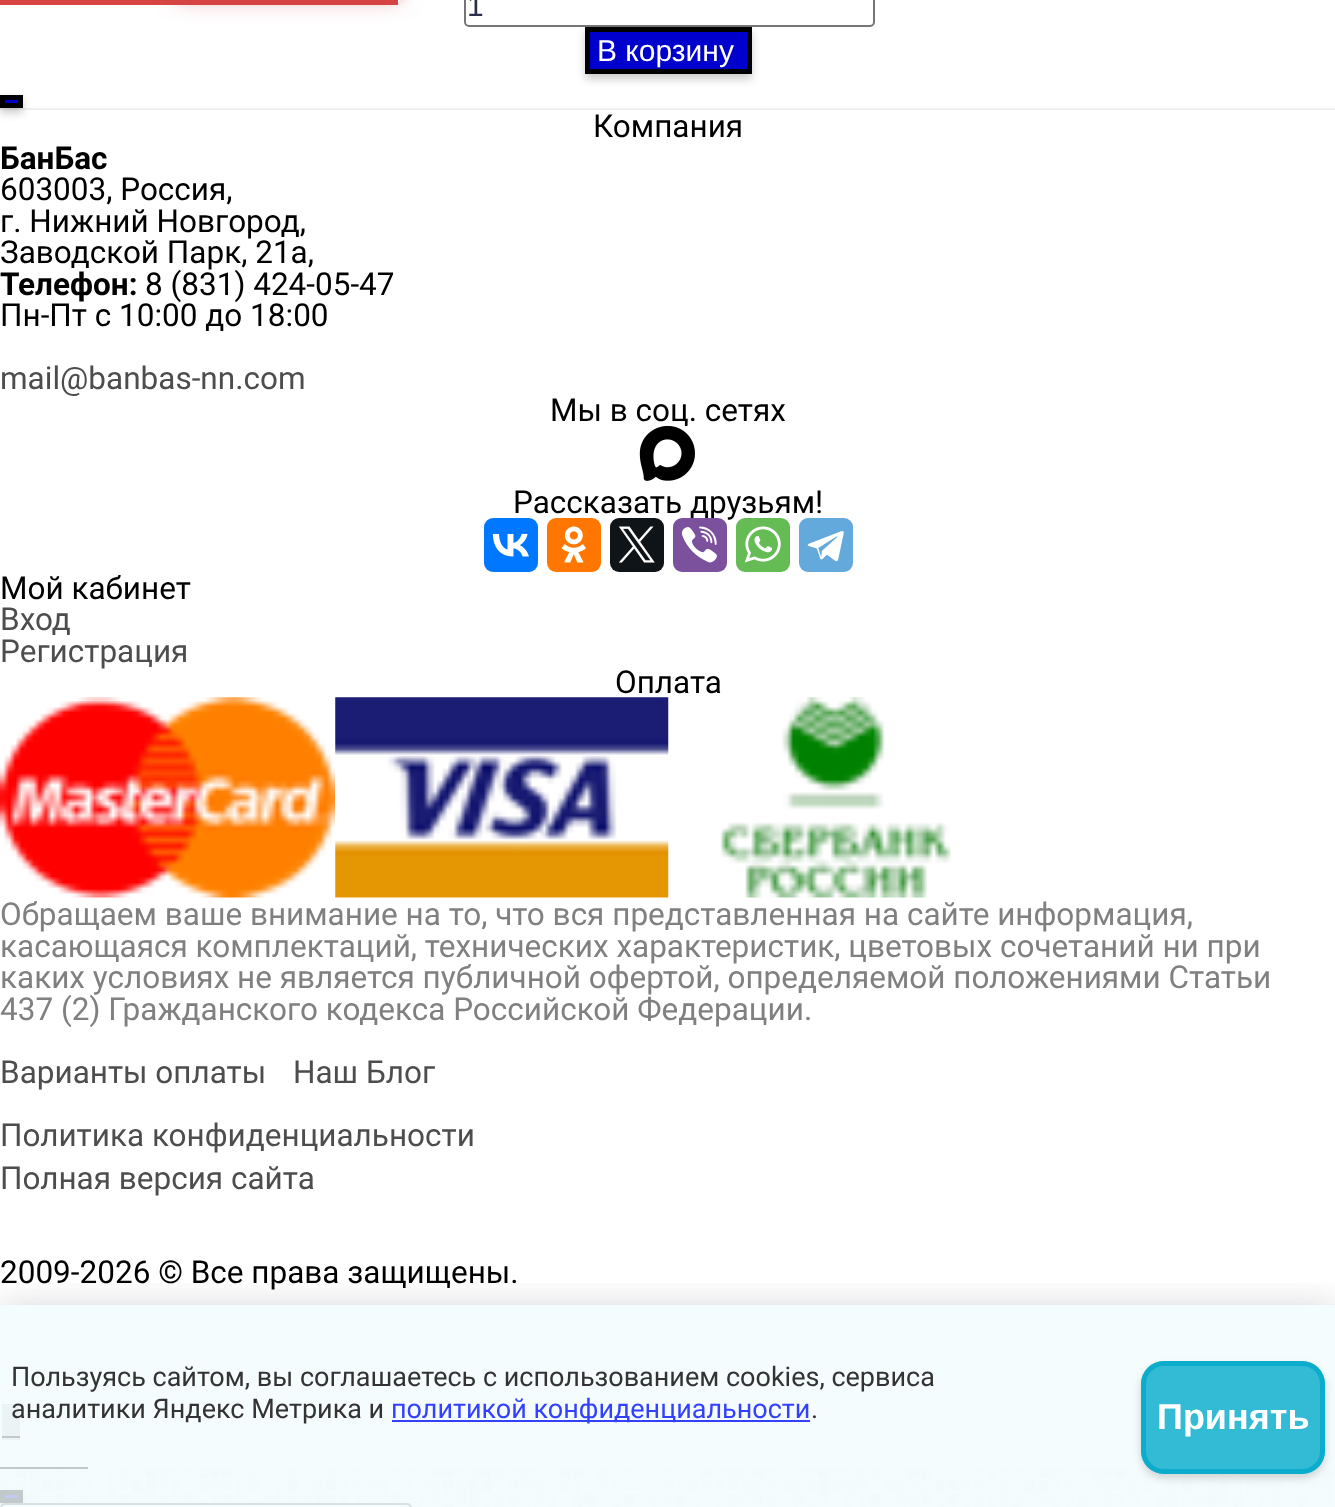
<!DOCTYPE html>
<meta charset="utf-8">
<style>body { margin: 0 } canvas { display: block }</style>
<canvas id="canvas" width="1335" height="1507"></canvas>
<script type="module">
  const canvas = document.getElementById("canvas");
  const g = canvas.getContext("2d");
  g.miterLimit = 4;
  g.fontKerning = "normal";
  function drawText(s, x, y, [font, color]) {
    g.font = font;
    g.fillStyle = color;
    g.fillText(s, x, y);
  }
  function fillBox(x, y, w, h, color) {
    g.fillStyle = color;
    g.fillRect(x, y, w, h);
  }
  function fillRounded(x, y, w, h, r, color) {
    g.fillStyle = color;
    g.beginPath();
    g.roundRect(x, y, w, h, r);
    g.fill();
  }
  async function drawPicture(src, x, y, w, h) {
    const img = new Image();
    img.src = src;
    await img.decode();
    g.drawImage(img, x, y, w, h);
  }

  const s1 = ["30px Liberation Sans", "#2B2E4A"];
  const s2 = ["30px Liberation Sans", "#FFFFFF"];
  const s3 = ["31.5px Roboto", "#000000"];
  const s4 = ["bold 31.5px Roboto", "#000000"];
  const s5 = ["31.5px Roboto", "#4D4D4D"];
  const s6 = ["31.5px Roboto", "#808080"];
  const s7 = ["27px Roboto", "#333333"];
  const s8 = ["27px Roboto", "#3341FE"];
  const s9 = ["bold 36px Liberation Sans", "#FFFFFF"];

  fillBox(0, 0, 1335, 1507, "#FFFFFF");
  await drawPicture("pic1.png", 0, 1469, 1335, 38);
  g.beginPath();
  g.roundRect(465, -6, 409, 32, 4);
  g.strokeStyle = "#767676";
  g.lineWidth = 2;
  g.stroke();
  drawText("1", 467, 16, s1);
  g.fillStyle = "rgba(0, 0, 0, 0.2)";
  g.filter = "blur(4.5px)";
  g.beginPath();
  g.rect(585, 32, 167, 47);
  g.fill();
  g.filter = "none";
  g.fillStyle = "#0000CD";
  g.beginPath();
  g.rect(587.5, 29.5, 162, 42);
  g.fill();
  g.strokeStyle = "#000000";
  g.lineWidth = 5;
  g.stroke();
  drawText("В корзину", 597, 61, s2);
  fillBox(0, 108, 1335, 2, "#F0F0F0");
  g.fillStyle = "rgba(0, 0, 0, 0.2)";
  g.filter = "blur(4.5px)";
  g.beginPath();
  g.rect(0, 99, 23, 14);
  g.fill();
  g.filter = "none";
  g.fillStyle = "#0000CD";
  g.beginPath();
  g.rect(2.5, 97.5, 18, 8);
  g.fill();
  g.stroke();
  drawText("Компания", 593, 137, s3);
  drawText("БанБас", 0, 169, s4);
  drawText("603003, Россия,", 0, 200, s3);
  drawText("г. Нижний Нoвгoрод,", 0, 232, s3);
  drawText("Заводской Парк, 21а,", 0, 263, s3);
  drawText("Телефон:", 0, 295, s4);
  drawText("8 (831) 424-05-47", 145, 295, s3);
  drawText("Пн-Пт с 10:00 до 18:00", 0, 326, s3);
  drawText("mail@banbas-nn.com", 0, 389, s5);
  drawText("Мы в соц. сетях", 550, 421, s3);
  await drawPicture("pic2.png", 639, 425, 56, 56);
  drawText("Рассказать друзьям!", 513, 513, s3);
  fillRounded(484, 518, 54, 54, 9, "#0077FF");
  await drawPicture("pic3.png", 492, 533, 37, 24);
  fillRounded(547, 518, 54, 54, 9, "#FF7700");
  await drawPicture("pic4.png", 561, 526, 25, 37);
  fillRounded(610, 518, 54, 54, 9, "#0F1419");
  await drawPicture("pic5.png", 618, 526, 37, 37);
  fillRounded(673, 518, 54, 54, 9, "#7B519D");
  await drawPicture("pic6.png", 681, 526, 36, 37);
  fillRounded(736, 518, 54, 54, 9, "#65BC54");
  await drawPicture("pic7.png", 744, 526, 37, 37);
  fillRounded(799, 518, 54, 54, 9, "#64A9DC");
  await drawPicture("pic8.png", 807, 531, 37, 31);
  drawText("Мой кабинет", 0, 599, s3);
  drawText("Вход", 0, 630, s5);
  drawText("Регистрация", 0, 662, s5);
  drawText("Оплата", 615, 693, s3);
  await drawPicture("pic9.png", 0, 697, 336, 201);
  await drawPicture("pic10.png", 335, 697, 334, 201);
  await drawPicture("pic11.png", 720, 697, 231, 201);
  drawText("Обращаем ваше внимание на то, что вся представленная на сайте информация,", 0, 925, s6);
  drawText("касающаяся комплектаций, технических характеристик, цветовых сочетаний ни при", 0, 957, s6);
  drawText("каких условиях не является публичной офертой, определяемой положениями Статьи", 0, 988, s6);
  drawText("437 (2) Гражданского кодекса Российской Федерации.", 0, 1020, s6);
  drawText("Варианты оплаты", 0, 1083, s5);
  drawText("Наш Блог", 293, 1083, s5);
  drawText("Политика конфиденциальности", 0, 1146, s5);
  drawText("Полная версия сайта", 0, 1189, s5);
  drawText("2009-2026 © Все права защищены.", 0, 1283, s3);
  fillBox(2, 1404, 18, 36, "#D2D2D2");
  fillBox(2, 1436, 18, 2, "#000000");
  fillBox(0, 1467, 88, 2, "#000000");
  fillBox(0, 0, 398, 5, "#D74444");
  g.save();
  g.beginPath();
  g.moveTo(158, 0);
  g.lineTo(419, 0);
  g.lineTo(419, 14);
  g.lineTo(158, 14);
  g.closePath();
  g.moveTo(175, -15);
  g.lineTo(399.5, -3);
  g.lineTo(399.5, 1.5);
  g.lineTo(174.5, -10.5);
  g.closePath();
  g.clip("evenodd");
  g.filter = "blur(5.5px)";
  g.beginPath();
  g.rect(176, -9, 225, 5);
  g.fill();
  g.filter = "none";
  g.restore();
  g.save();
  g.beginPath();
  g.moveTo(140, 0);
  g.lineTo(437, 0);
  g.lineTo(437, 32);
  g.lineTo(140, 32);
  g.closePath();
  g.moveTo(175, -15);
  g.lineTo(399.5, -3);
  g.lineTo(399.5, 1.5);
  g.lineTo(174.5, -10.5);
  g.closePath();
  g.clip("evenodd");
  g.filter = "blur(11.5px)";
  g.beginPath();
  g.rect(176, -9, 225, 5);
  g.fill();
  g.filter = "none";
  g.restore();
  g.fillStyle = "rgba(0, 0, 0, 0.2)";
  g.filter = "blur(4.5px)";
  g.beginPath();
  g.rect(0, 1494, 23, 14);
  g.fill();
  g.filter = "none";
  g.fillStyle = "#0000CD";
  g.beginPath();
  g.rect(2.5, 1492.5, 18, 8);
  g.fill();
  g.stroke();
  g.fillStyle = "#FFFFFF";
  g.beginPath();
  g.roundRect(1, 1504, 410, 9, 4);
  g.fill();
  g.strokeStyle = "#767676";
  g.lineWidth = 2;
  g.stroke();
  g.save();
  g.beginPath();
  g.rect(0, 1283, 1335, 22);
  g.clip();
  g.fillStyle = "rgba(54, 61, 77, 0.2)";
  g.filter = "blur(17px)";
  g.beginPath();
  g.rect(0, 1305, 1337, 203);
  g.fill();
  g.filter = "none";
  g.restore();
  fillBox(0, 1305, 1335, 202, "rgba(242, 251, 254, 0.8)");
  drawText("Пользуясь сайтом, вы соглашаетесь с использованием cookies, сервиса", 11, 1386, s7);
  drawText("аналитики Яндекс Метрика и", 11, 1418, s7);
  fillBox(392, 1420, 418, 2, "#3341FE");
  drawText("политикой конфиденциальности", 391, 1418, s8);
  drawText(".", 811, 1418, s7);
  g.save();
  g.beginPath();
  g.moveTo(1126, 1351);
  g.lineTo(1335, 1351);
  g.lineTo(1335, 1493);
  g.lineTo(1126, 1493);
  g.closePath();
  g.moveTo(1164, 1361);
  g.lineTo(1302, 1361);
  g.bezierCurveTo(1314.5, 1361, 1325, 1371.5, 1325, 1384);
  g.lineTo(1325, 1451);
  g.bezierCurveTo(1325, 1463.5, 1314.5, 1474, 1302, 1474);
  g.lineTo(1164, 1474);
  g.bezierCurveTo(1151.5, 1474, 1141, 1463.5, 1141, 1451);
  g.lineTo(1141, 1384);
  g.bezierCurveTo(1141, 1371.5, 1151.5, 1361, 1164, 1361);
  g.closePath();
  g.clip("evenodd");
  g.fillStyle = "rgba(0, 0, 0, 0.16)";
  g.filter = "blur(4.5px)";
  g.beginPath();
  g.roundRect(1141, 1366, 184, 112, 23);
  g.fill();
  g.filter = "none";
  g.restore();
  fillRounded(1141, 1361, 184, 113, 23, "rgba(2, 169, 203, 0.8)");
  g.beginPath();
  g.roundRect(1143.5, 1363.5, 179, 108, 20.5);
  g.strokeStyle = "rgba(2, 169, 203, 0.8)";
  g.lineWidth = 5;
  g.stroke();
  drawText("Принять", 1157, 1429, s9);
</script>
